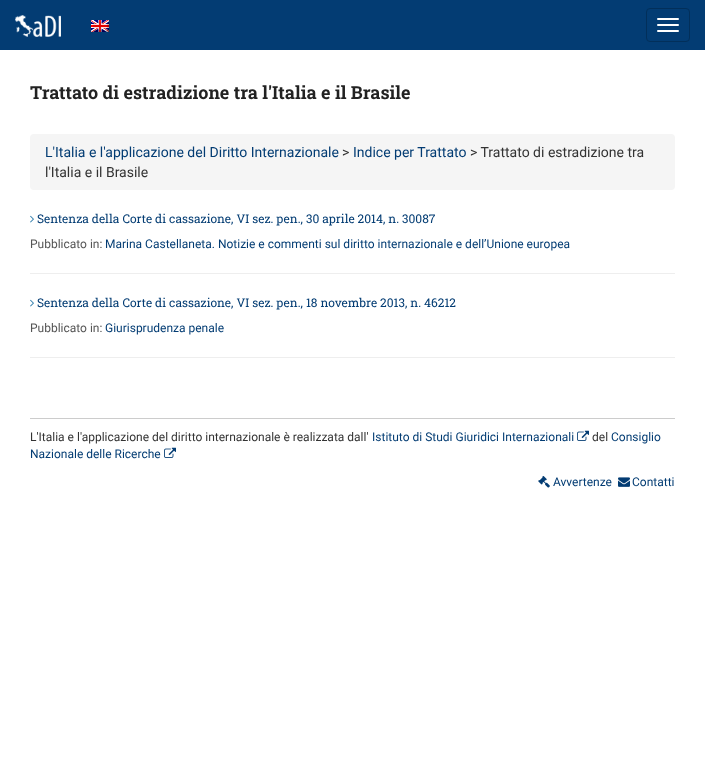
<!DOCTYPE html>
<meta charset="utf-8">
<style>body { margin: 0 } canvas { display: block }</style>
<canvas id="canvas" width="705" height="758"></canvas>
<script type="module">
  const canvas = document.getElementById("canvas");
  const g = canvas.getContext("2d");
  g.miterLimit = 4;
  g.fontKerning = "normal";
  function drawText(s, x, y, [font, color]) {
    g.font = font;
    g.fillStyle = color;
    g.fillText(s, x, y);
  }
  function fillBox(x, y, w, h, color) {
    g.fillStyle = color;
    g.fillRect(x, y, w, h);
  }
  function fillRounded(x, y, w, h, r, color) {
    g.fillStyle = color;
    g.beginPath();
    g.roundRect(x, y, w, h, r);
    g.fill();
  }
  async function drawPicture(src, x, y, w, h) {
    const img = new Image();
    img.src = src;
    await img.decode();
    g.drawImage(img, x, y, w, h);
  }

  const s1 = ["bold 18px Roboto Slab", "#222222"];
  const s2 = ["14px Roboto", "#033C73"];
  const s3 = ["14px Roboto", "#333333"];
  const s4 = ["12px Roboto Slab", "#033C73"];
  const s5 = ["12px Roboto", "#555555"];
  const s6 = ["12px Roboto", "#033C73"];
  const s7 = ["12px Roboto", "#333333"];

  fillBox(0, 0, 705, 758, "#FFFFFF");
  fillBox(0, 0, 705, 50, "#033C73");
  await drawPicture("pic1.png", 15, 15, 46, 22);
  await drawPicture("pic2.png", 91, 20, 18, 12);
  g.beginPath();
  g.roundRect(646.5, 8.5, 43, 33, 3.5);
  g.strokeStyle = "#022F5A";
  g.stroke();
  fillRounded(657, 18, 22, 2, 1, "#FFFFFF");
  fillRounded(657, 24, 22, 2, 1, "#FFFFFF");
  fillRounded(657, 30, 22, 2, 1, "#FFFFFF");
  drawText("Trattato di estradizione tra l'Italia e il Brasile", 30, 99, s1);
  fillRounded(30, 134, 645, 56, 4, "#F5F5F5");
  drawText("L'Italia e l'applicazione del Diritto Internazionale", 45, 157, s2);
  drawText(">", 342, 157, s3);
  drawText("Indice per Trattato", 353, 157, s2);
  drawText("> Trattato di estradizione tra", 470, 157, s3);
  drawText("l'Italia e il Brasile", 45, 177, s3);
  await drawPicture("pic3.png", 30, 215, 4, 8);
  drawText("Sentenza della Corte di cassazione, VI sez. pen., 30 aprile 2014, n. 30087", 37, 223, s4);
  drawText("Pubblicato in:", 30, 248, s5);
  drawText("Marina Castellaneta. Notizie e commenti sul diritto internazionale e dell’Unione europea", 105, 248, s6);
  fillBox(30, 273, 645, 1, "#EEEEEE");
  await drawPicture("pic3.png", 30, 299, 4, 8);
  drawText("Sentenza della Corte di cassazione, VI sez. pen., 18 novembre 2013, n. 46212", 37, 307, s4);
  drawText("Pubblicato in:", 30, 332, s5);
  drawText("Giurisprudenza penale", 105, 332, s6);
  fillBox(30, 357, 645, 1, "#EEEEEE");
  fillBox(30, 418, 645, 1, "#CCCCCC");
  drawText("L'Italia e l'applicazione del diritto internazionale è realizzata dall'", 30, 441, s7);
  drawText("Consiglio", 611, 441, s6);
  drawText("Nazionale delle Ricerche", 30, 458, s6);
  await drawPicture("pic4.png", 164, 447, 12, 11);
  drawText("Istituto di Studi Giuridici Internazionali", 372, 441, s6);
  await drawPicture("pic4.png", 577, 430, 12, 11);
  drawText("del", 592, 441, s7);
  await drawPicture("pic5.png", 538, 476, 12, 12);
  drawText("Avvertenze", 553, 486, s6);
  await drawPicture("pic6.png", 618, 477, 12, 10);
  drawText("Contatti", 632, 486, s6);
</script>
